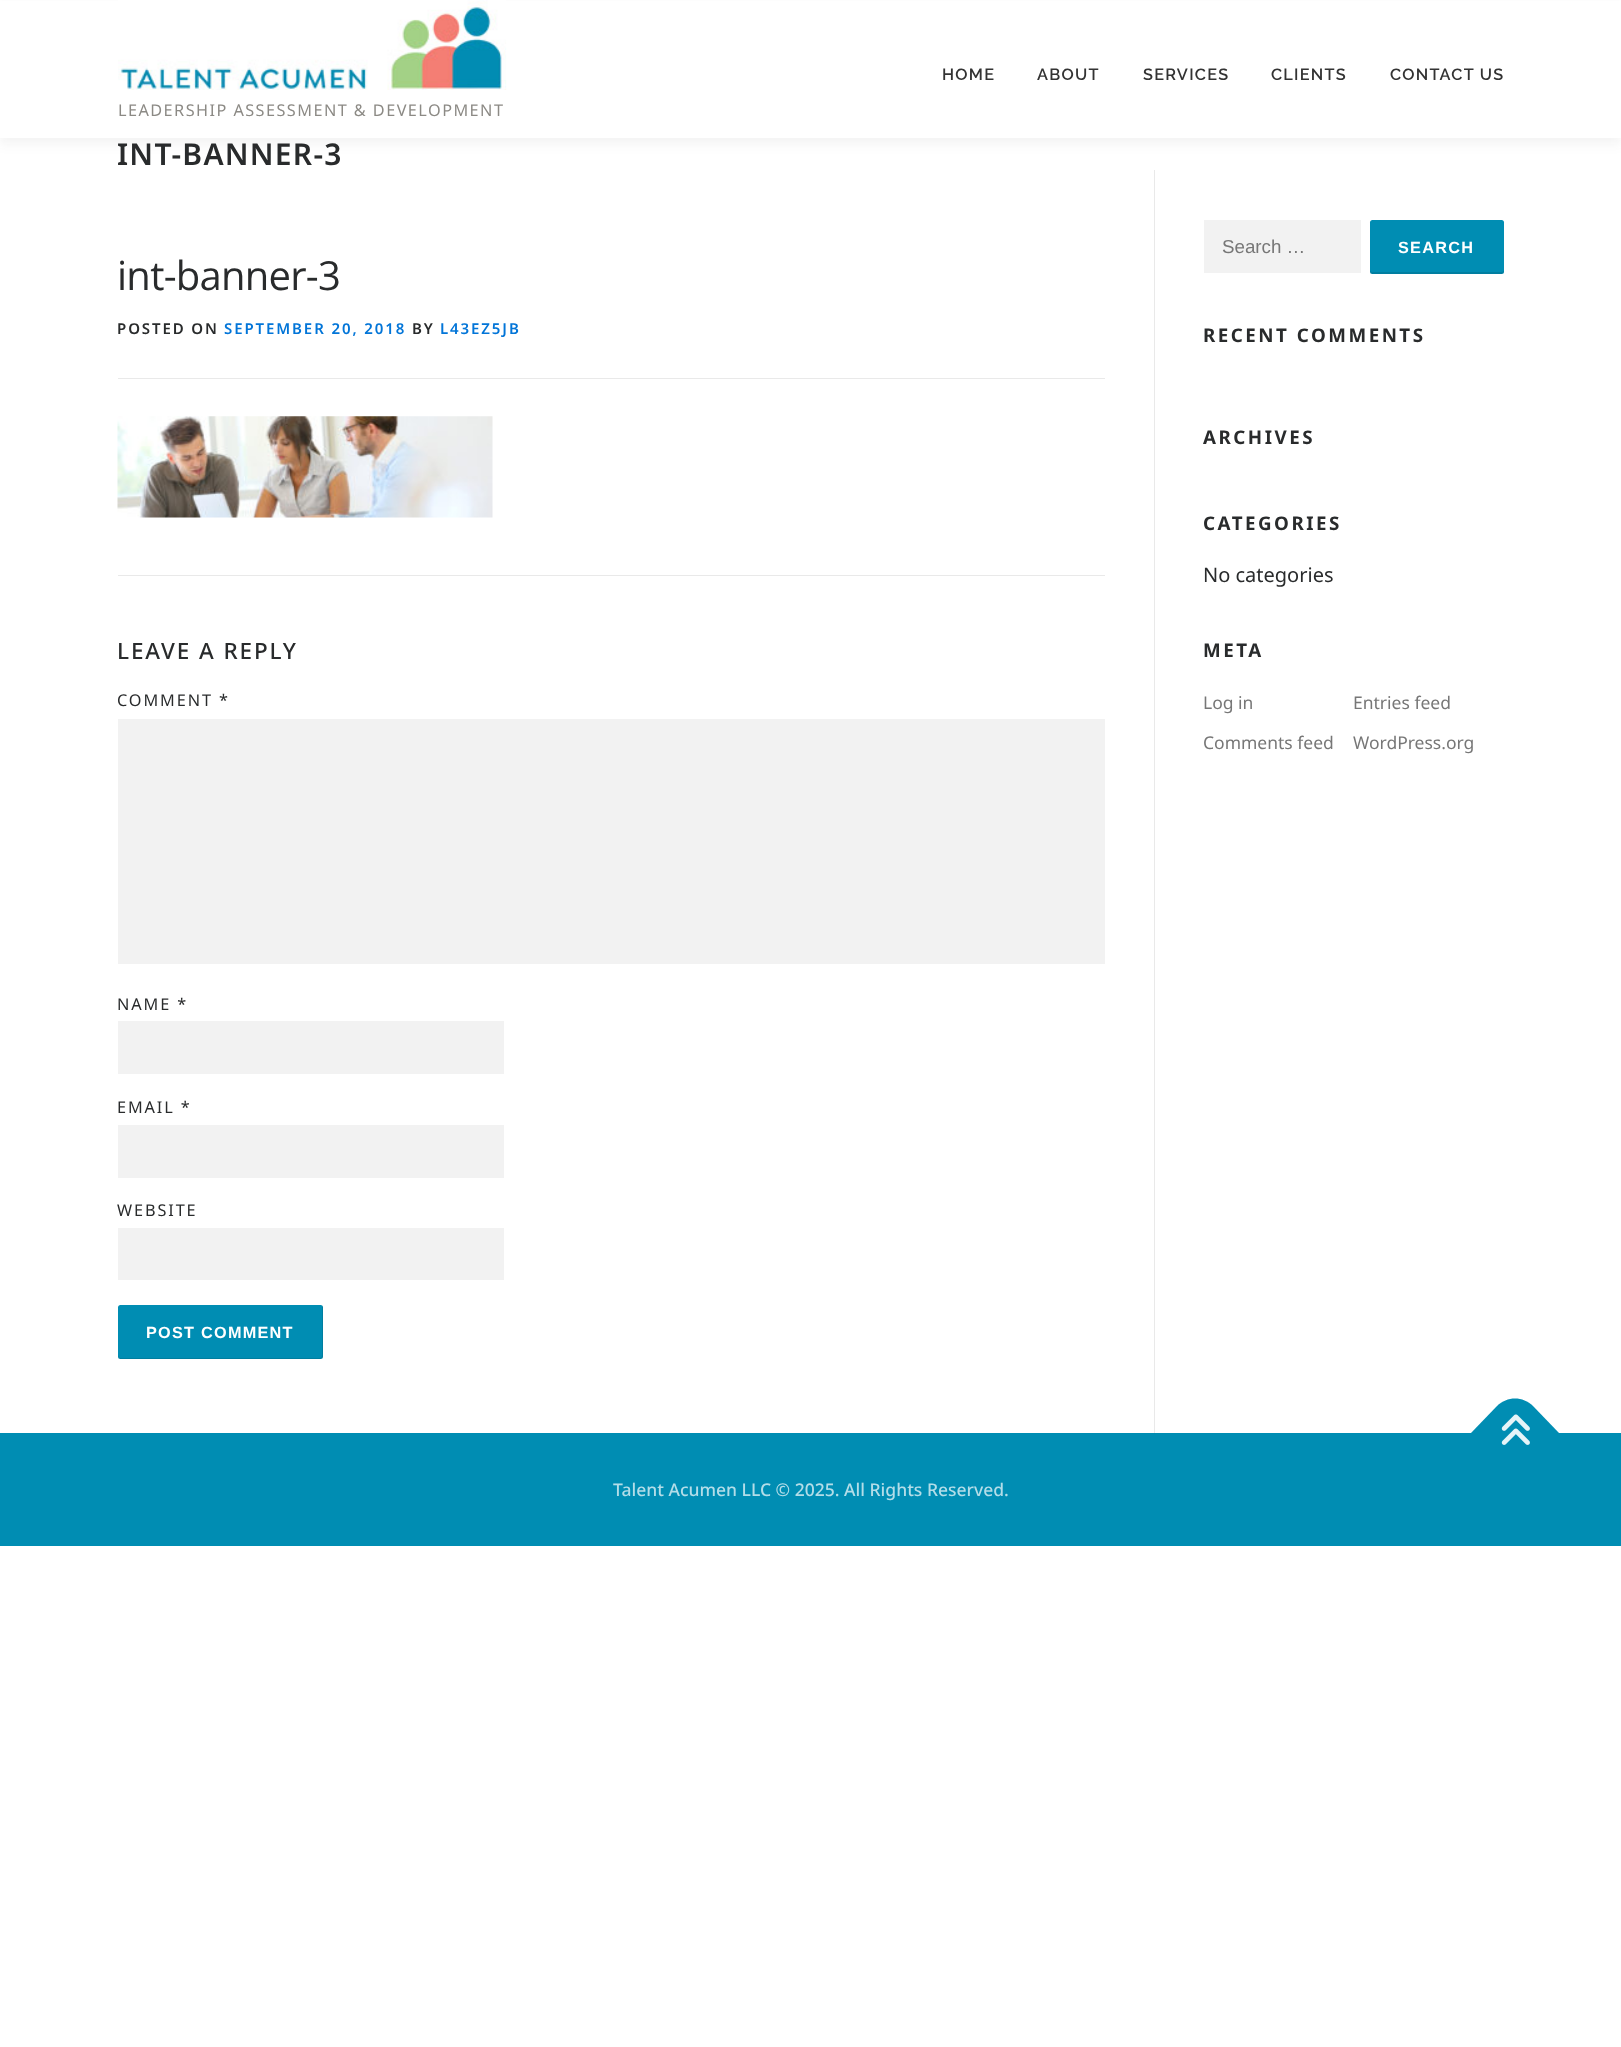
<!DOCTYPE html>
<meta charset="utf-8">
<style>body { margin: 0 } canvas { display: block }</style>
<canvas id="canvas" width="1621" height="2047"></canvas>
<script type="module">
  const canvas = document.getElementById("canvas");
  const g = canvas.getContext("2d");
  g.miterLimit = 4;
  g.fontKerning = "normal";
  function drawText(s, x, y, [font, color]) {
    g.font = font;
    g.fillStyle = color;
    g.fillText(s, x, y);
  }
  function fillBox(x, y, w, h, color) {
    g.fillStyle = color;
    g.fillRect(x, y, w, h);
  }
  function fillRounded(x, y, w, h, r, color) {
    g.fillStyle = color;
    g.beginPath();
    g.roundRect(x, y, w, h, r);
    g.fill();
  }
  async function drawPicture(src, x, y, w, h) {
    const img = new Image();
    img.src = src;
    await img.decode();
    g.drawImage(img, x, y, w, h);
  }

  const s1 = ["600 16.25px Raleway", "#333333"];
  const s2 = ["16.25px Noto Sans", "#8C8A85"];
  const s3 = ["600 30px Noto Sans", "#292B2C"];
  const s4 = ["40px Open Sans", "#292B2C"];
  const s5 = ["600 15px Noto Sans", "#292B2C"];
  const s6 = ["600 15px Noto Sans", "#0275D8"];
  const s7 = ["500 22.5px Noto Sans", "#292B2C"];
  const s8 = ["16.25px Noto Sans", "#292B2C"];
  const s9 = ["bold 16.25px Liberation Sans", "#FFFFFF"];
  const s10 = ["18.75px Liberation Sans", "#777777"];
  const s11 = ["bold 18.75px Noto Sans", "#292B2C"];
  const s12 = ["20px Noto Sans", "#292B2C"];
  const s13 = ["17.5px Noto Sans", "#777777"];
  const s14 = ["500 17.5px Noto Sans", "#B3DDE8"];

  fillBox(0, 0, 1621, 2047, "#FFFFFF");
  g.fillStyle = "rgba(50, 50, 50, 0.06)";
  g.filter = "blur(6px)";
  g.beginPath();
  g.rect(0, 6, 1621, 138);
  g.fill();
  g.filter = "none";
  fillBox(0, 1, 1621, 137, "#FFFFFF");
  g.letterSpacing = "1.25px";
  drawText("HOME", 942, 80, s1);
  drawText("ABOUT", 1037, 80, s1);
  drawText("SERVICES", 1143, 80, s1);
  drawText("CLIENTS", 1271, 80, s1);
  drawText("CONTACT US", 1390, 80, s1);
  await drawPicture("pic1.png", 118, 0, 389, 90);
  g.letterSpacing = "1.45px";
  drawText("LEADERSHIP ASSESSMENT & DEVELOPMENT", 118, 116, s2);
  g.letterSpacing = "1.25px";
  drawText("INT-BANNER-3", 117, 165, s3);
  fillBox(1154, 170, 1, 1263, "#E9E9E9");
  g.letterSpacing = "-0.75px";
  drawText("int-banner-3", 117, 290, s4);
  fillBox(118, 378, 987, 1, "#E9E9E9");
  g.letterSpacing = "1.9px";
  drawText("POSTED ON", 117, 334, s5);
  drawText("SEPTEMBER 20, 2018", 224, 334, s6);
  drawText("BY", 412, 334, s5);
  drawText("L43EZ5JB", 440, 334, s6);
  await drawPicture("pic2.png", 117, 416, 376, 102);
  fillBox(118, 575, 987, 1, "#E9E9E9");
  drawText("LEAVE A REPLY", 117, 659, s7);
  drawText("COMMENT *", 117, 706, s8);
  fillBox(118, 719, 987, 245, "#F2F2F2");
  drawText("NAME *", 117, 1010, s8);
  fillBox(118, 1021, 386, 53, "#F2F2F2");
  drawText("EMAIL *", 117, 1113, s8);
  fillBox(118, 1125, 386, 53, "#F2F2F2");
  drawText("WEBSITE", 117, 1216, s8);
  fillBox(118, 1228, 386, 52, "#F2F2F2");
  fillRounded(118, 1305, 205, 54, 2.5, "#008DB3");
  g.fillStyle = "rgba(0, 0, 0, 0.1)";
  g.beginPath();
  g.moveTo(118, 1355);
  g.lineTo(118, 1356);
  g.bezierCurveTo(118, 1358, 119, 1359, 120, 1359);
  g.lineTo(320, 1359);
  g.bezierCurveTo(322, 1359, 323, 1358, 323, 1356);
  g.lineTo(323, 1308);
  g.bezierCurveTo(323, 1307, 323, 1306, 322, 1305);
  g.lineTo(322, 1355);
  g.bezierCurveTo(322, 1356, 321, 1358, 320, 1358);
  g.lineTo(120, 1358);
  g.bezierCurveTo(119, 1358, 118, 1356, 118, 1355);
  g.closePath();
  g.fill();
  g.letterSpacing = "1.25px";
  drawText("POST COMMENT", 146, 1338, s9);
  fillBox(1204, 220, 157, 53, "#F2F2F2");
  g.letterSpacing = "0px";
  drawText("Search …", 1222, 253, s10);
  fillRounded(1370, 220, 134, 54, 2.5, "#008DB3");
  g.fillStyle = "rgba(0, 0, 0, 0.1)";
  g.beginPath();
  g.moveTo(1370, 270);
  g.lineTo(1370, 272);
  g.bezierCurveTo(1370, 273, 1371, 274, 1372, 274);
  g.lineTo(1502, 274);
  g.bezierCurveTo(1503, 274, 1504, 273, 1504, 272);
  g.lineTo(1504, 270);
  g.bezierCurveTo(1504, 271, 1503, 272, 1501, 272);
  g.lineTo(1372, 272);
  g.bezierCurveTo(1371, 272, 1370, 271, 1370, 270);
  g.closePath();
  g.fill();
  g.letterSpacing = "1.25px";
  drawText("SEARCH", 1398, 253, s9);
  g.letterSpacing = "2.5px";
  drawText("RECENT COMMENTS", 1203, 342, s11);
  drawText("ARCHIVES", 1203, 444, s11);
  drawText("CATEGORIES", 1203, 530, s11);
  g.letterSpacing = "0px";
  drawText("No categories", 1203, 582, s12);
  g.letterSpacing = "2.5px";
  drawText("META", 1203, 657, s11);
  g.letterSpacing = "0px";
  drawText("Log in", 1203, 709, s13);
  drawText("Entries feed", 1353, 709, s13);
  drawText("Comments feed", 1203, 749, s13);
  drawText("WordPress.org", 1353, 749, s13);
  fillBox(0, 1433, 1621, 113, "#008DB3");
  g.beginPath();
  g.moveTo(1471, 1433);
  g.lineTo(1497, 1406);
  g.bezierCurveTo(1507, 1396, 1523, 1396, 1533, 1406);
  g.lineTo(1559, 1433);
  g.lineTo(1515, 1477);
  g.closePath();
  g.fill();
  await drawPicture("pic3.png", 1501, 1414, 29, 31);
  drawText("Talent Acumen LLC © 2025. All Rights Reserved.", 613, 1496, s14);
</script>
